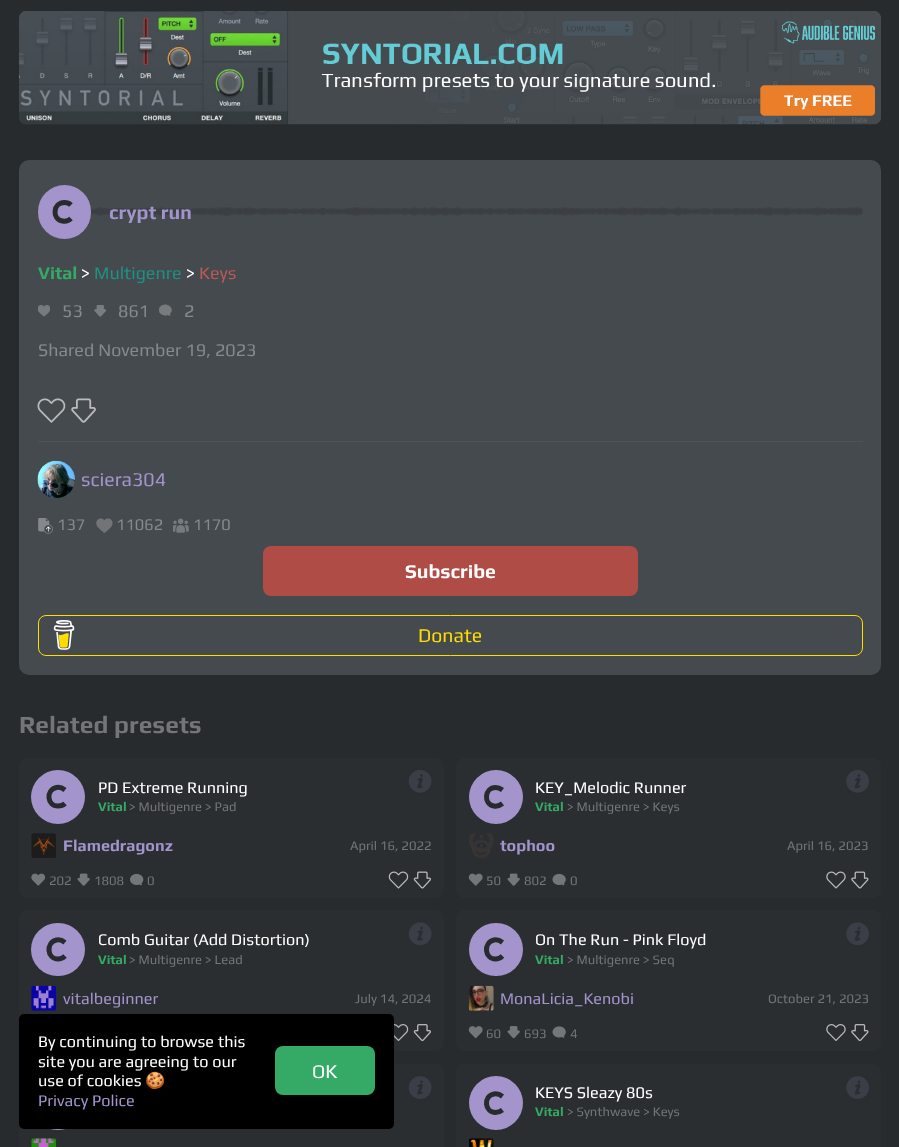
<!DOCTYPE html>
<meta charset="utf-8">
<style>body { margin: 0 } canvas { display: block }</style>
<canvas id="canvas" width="899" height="1147"></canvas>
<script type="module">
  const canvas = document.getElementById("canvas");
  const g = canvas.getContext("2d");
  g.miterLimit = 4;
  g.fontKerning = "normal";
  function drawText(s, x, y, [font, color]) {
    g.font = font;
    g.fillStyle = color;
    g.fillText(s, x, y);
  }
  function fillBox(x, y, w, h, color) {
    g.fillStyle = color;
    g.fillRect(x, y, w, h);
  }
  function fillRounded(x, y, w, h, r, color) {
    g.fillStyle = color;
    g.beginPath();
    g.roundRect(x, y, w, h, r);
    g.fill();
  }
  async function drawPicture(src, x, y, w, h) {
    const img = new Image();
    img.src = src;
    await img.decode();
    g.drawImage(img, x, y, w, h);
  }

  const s1 = ["bold 19.5px Play", "#A395CC"];
  const s2 = ["bold 17.9px Play", "#35AA66"];
  const s3 = ["17.9px Play", "#FFFFFF"];
  const s4 = ["17.9px Play", "#1F9084"];
  const s5 = ["17.9px Play", "#BB5A55"];
  const s6 = ["17.9px Play", "#86898D"];
  const s7 = ["19.5px Play", "#A395CC"];
  const s8 = ["16.25px Play", "#86898D"];
  const s9 = ["bold 19.5px Play", "#FFFFFF"];
  const s10 = ["19.5px Play", "#FFDD00"];
  const s11 = ["bold 24.5px Play", "#737577"];
  const s12 = ["16.25px Play", "#FFFFFF"];
  const s13 = ["bold 13px Play", "#35AA66"];
  const s14 = ["13px Play", "#737577"];
  const s15 = ["bold 16.25px Play", "#A395CC"];
  const s16 = ["16.25px Play", "#A395CC"];
  const s17 = ["16.25px Noto Color Emoji", "#FFFFFF"];
  const s18 = ["19.5px Play", "#FFFFFF"];

  fillBox(0, 0, 899, 1147, "#272B2E");
  await drawPicture("pic1.png", 18, 11, 863, 114);
  fillRounded(19, 160, 862, 515, 10, "#454A4F");
  await drawPicture("pic2.png", 37, 207, 826, 9);
  fillRounded(38, 185, 53, 54, 26.5, "#A395CC");
  g.beginPath();
  g.moveTo(71, 218.5);
  g.bezierCurveTo(69, 220.5, 65.5, 221.5, 62.5, 221);
  g.bezierCurveTo(51.5, 219, 53, 202.5, 64.5, 202.5);
  g.bezierCurveTo(67, 202.5, 69.5, 203.5, 71, 205);
  g.strokeStyle = "#272B2E";
  g.lineWidth = 5;
  g.stroke();
  drawText("crypt run", 109, 219, s1);
  drawText("Vital", 38, 279, s2);
  drawText(">", 81, 279, s3);
  drawText("Multigenre", 94, 279, s4);
  drawText(">", 186, 279, s3);
  drawText("Keys", 199, 279, s5);
  await drawPicture("pic3.png", 38, 305, 12, 12);
  drawText("53", 62, 317, s6);
  await drawPicture("pic4.png", 94, 305, 12, 12);
  drawText("861", 118, 317, s6);
  await drawPicture("pic5.png", 159, 304, 13, 12);
  drawText("2", 184, 317, s6);
  drawText("Shared November 19, 2023", 38, 356, s6);
  await drawPicture("pic6.png", 37, 398, 29, 25);
  await drawPicture("pic7.png", 71, 398, 25, 25);
  fillBox(38, 441, 825, 1, "#4E5358");
  await drawPicture("pic8.png", 37, 460, 38, 38);
  drawText("sciera304", 81, 486, s7);
  await drawPicture("pic9.png", 38, 518, 15, 16);
  drawText("137", 57, 530, s8);
  await drawPicture("pic10.png", 96, 518, 17, 15);
  drawText("11062", 116, 530, s8);
  await drawPicture("pic11.png", 173, 518, 16, 15);
  drawText("1170", 193, 530, s8);
  fillRounded(263, 546, 375, 50, 8, "#B04C46");
  drawText("Subscribe", 405, 578, s9);
  await drawPicture("pic12.png", 53, 620, 22, 30);
  g.beginPath();
  g.roundRect(38.5, 615.5, 824, 40, 7.5);
  g.strokeStyle = "#FFDD00";
  g.lineWidth = 1;
  g.stroke();
  drawText("Donate", 418, 642, s10);
  drawText("Related presets", 19, 733, s11);
  fillRounded(19, 758, 425, 140, 8, "#2A2E31");
  await drawPicture("pic13.png", 408, 770, 24, 23);
  g.fillStyle = "#A395CC";
  g.beginPath();
  g.arc(58, 797, 27, 0, Math.PI * 2);
  g.fill();
  g.beginPath();
  g.moveTo(65, 803.5);
  g.bezierCurveTo(63, 805.5, 60.5, 806, 58, 806);
  g.bezierCurveTo(47, 806, 45.5, 790, 56.5, 787.5);
  g.bezierCurveTo(59.5, 787, 62.5, 788, 65, 790);
  g.strokeStyle = "#272B2E";
  g.lineWidth = 5;
  g.stroke();
  drawText("PD Extreme Running", 98, 793, s12);
  drawText("Vital", 98, 811, s13);
  drawText("> Multigenre > Pad", 129, 811, s14);
  await drawPicture("pic14.png", 31, 833, 25, 25);
  drawText("Flamedragonz", 63, 851, s15);
  drawText("April 16, 2022", 350, 850, s14);
  await drawPicture("pic15.png", 31, 873, 15, 13);
  drawText("202", 49, 885, s14);
  await drawPicture("pic16.png", 77, 873, 13, 13);
  drawText("1808", 94, 885, s14);
  await drawPicture("pic17.png", 130, 873, 14, 13);
  drawText("0", 147, 885, s14);
  await drawPicture("pic18.png", 388, 871, 21, 18);
  await drawPicture("pic19.png", 413, 871, 18, 18);
  fillRounded(456, 758, 425, 140, 8, "#2A2E31");
  await drawPicture("pic20.png", 846, 770, 23, 23);
  g.fillStyle = "#A395CC";
  g.beginPath();
  g.arc(496, 797, 27, 0, Math.PI * 2);
  g.fill();
  g.beginPath();
  g.moveTo(502.5, 803.5);
  g.bezierCurveTo(500, 805.5, 497, 806.5, 494, 806);
  g.bezierCurveTo(483, 804, 484.5, 787.5, 495.5, 787.5);
  g.bezierCurveTo(498, 787.5, 500.5, 788.5, 502.5, 790);
  g.stroke();
  drawText("KEY_Melodic Runner", 535, 793, s12);
  drawText("Vital", 535, 811, s13);
  drawText("> Multigenre > Keys", 567, 811, s14);
  await drawPicture("pic21.png", 469, 833, 25, 25);
  drawText("tophoo", 500, 851, s15);
  drawText("April 16, 2023", 787, 850, s14);
  await drawPicture("pic22.png", 468, 873, 15, 13);
  drawText("50", 486, 885, s14);
  await drawPicture("pic16.png", 507, 873, 13, 13);
  drawText("802", 524, 885, s14);
  await drawPicture("pic23.png", 552, 873, 14, 13);
  drawText("0", 570, 885, s14);
  await drawPicture("pic24.png", 826, 871, 20, 18);
  await drawPicture("pic25.png", 851, 871, 18, 18);
  fillRounded(19, 910, 425, 141, 8, "#2A2E31");
  await drawPicture("pic26.png", 408, 922, 24, 23);
  fillRounded(31, 923, 54, 53, 26.5, "#A395CC");
  g.beginPath();
  g.moveTo(65, 956);
  g.bezierCurveTo(63, 958, 60.5, 959, 58, 959);
  g.bezierCurveTo(47, 959, 45.5, 942.5, 56.5, 940);
  g.bezierCurveTo(59.5, 939.5, 62.5, 940.5, 65, 942.5);
  g.stroke();
  drawText("Comb Guitar (Add Distortion)", 98, 945, s12);
  drawText("Vital", 98, 964, s13);
  drawText("> Multigenre > Lead", 129, 964, s14);
  await drawPicture("pic27.png", 31, 985, 26, 26);
  drawText("vitalbeginner", 63, 1004, s16);
  drawText("July 14, 2024", 355, 1003, s14);
  await drawPicture("pic28.png", 394, 1024, 15, 17);
  await drawPicture("pic29.png", 413, 1024, 18, 17);
  fillRounded(456, 910, 425, 141, 8, "#2A2E31");
  await drawPicture("pic30.png", 846, 922, 23, 23);
  fillRounded(469, 923, 54, 53, 26.5, "#A395CC");
  g.beginPath();
  g.moveTo(502.5, 956);
  g.bezierCurveTo(500.5, 958, 498, 959, 495.5, 959);
  g.bezierCurveTo(484.5, 959, 483, 942.5, 494, 940);
  g.bezierCurveTo(497, 939.5, 500, 940.5, 502.5, 942.5);
  g.stroke();
  drawText("On The Run - Pink Floyd", 535, 945, s12);
  drawText("Vital", 535, 964, s13);
  drawText("> Multigenre > Seq", 567, 964, s14);
  await drawPicture("pic31.png", 468, 985, 26, 26);
  drawText("MonaLicia_Kenobi", 500, 1004, s16);
  drawText("October 21, 2023", 768, 1003, s14);
  await drawPicture("pic32.png", 468, 1026, 15, 13);
  drawText("60", 486, 1038, s14);
  await drawPicture("pic33.png", 507, 1026, 13, 13);
  drawText("693", 524, 1038, s14);
  await drawPicture("pic34.png", 552, 1026, 14, 12);
  drawText("4", 570, 1038, s14);
  await drawPicture("pic35.png", 826, 1024, 20, 17);
  await drawPicture("pic36.png", 851, 1024, 18, 17);
  fillRounded(19, 1064, 425, 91, 8, "#2A2E31");
  g.fillStyle = "#A395CC";
  g.beginPath();
  g.arc(58, 1103, 27, 0, Math.PI * 2);
  g.fill();
  await drawPicture("pic37.png", 31, 1138, 26, 9);
  await drawPicture("pic38.png", 408, 1076, 24, 23);
  fillRounded(456, 1064, 425, 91, 8, "#2A2E31");
  g.fillStyle = "#A395CC";
  g.beginPath();
  g.arc(496, 1103, 27, 0, Math.PI * 2);
  g.fill();
  g.beginPath();
  g.moveTo(502.5, 1110);
  g.bezierCurveTo(500.5, 1111.5, 498, 1112.5, 495.5, 1112.5);
  g.bezierCurveTo(484.5, 1112.5, 483, 1096, 494, 1094);
  g.bezierCurveTo(497, 1093.5, 500, 1094.5, 502.5, 1096.5);
  g.stroke();
  drawText("KEYS Sleazy 80s", 535, 1098, s12);
  drawText("Vital", 535, 1116, s13);
  drawText("> Synthwave > Keys", 567, 1116, s14);
  await drawPicture("pic39.png", 469, 1138, 25, 9);
  await drawPicture("pic40.png", 846, 1076, 23, 23);
  fillRounded(19, 1014, 375, 115, 5, "#000000");
  drawText("By continuing to browse this", 38, 1047, s12);
  drawText("site you are agreeing to our", 38, 1067, s12);
  drawText("use of cookies", 38, 1086, s12);
  drawText("🍪", 145, 1086, s17);
  drawText("Privacy Police", 38, 1106, s16);
  fillRounded(275, 1046, 100, 49, 8, "#35AA66");
  drawText("OK", 312, 1078, s18);
</script>
